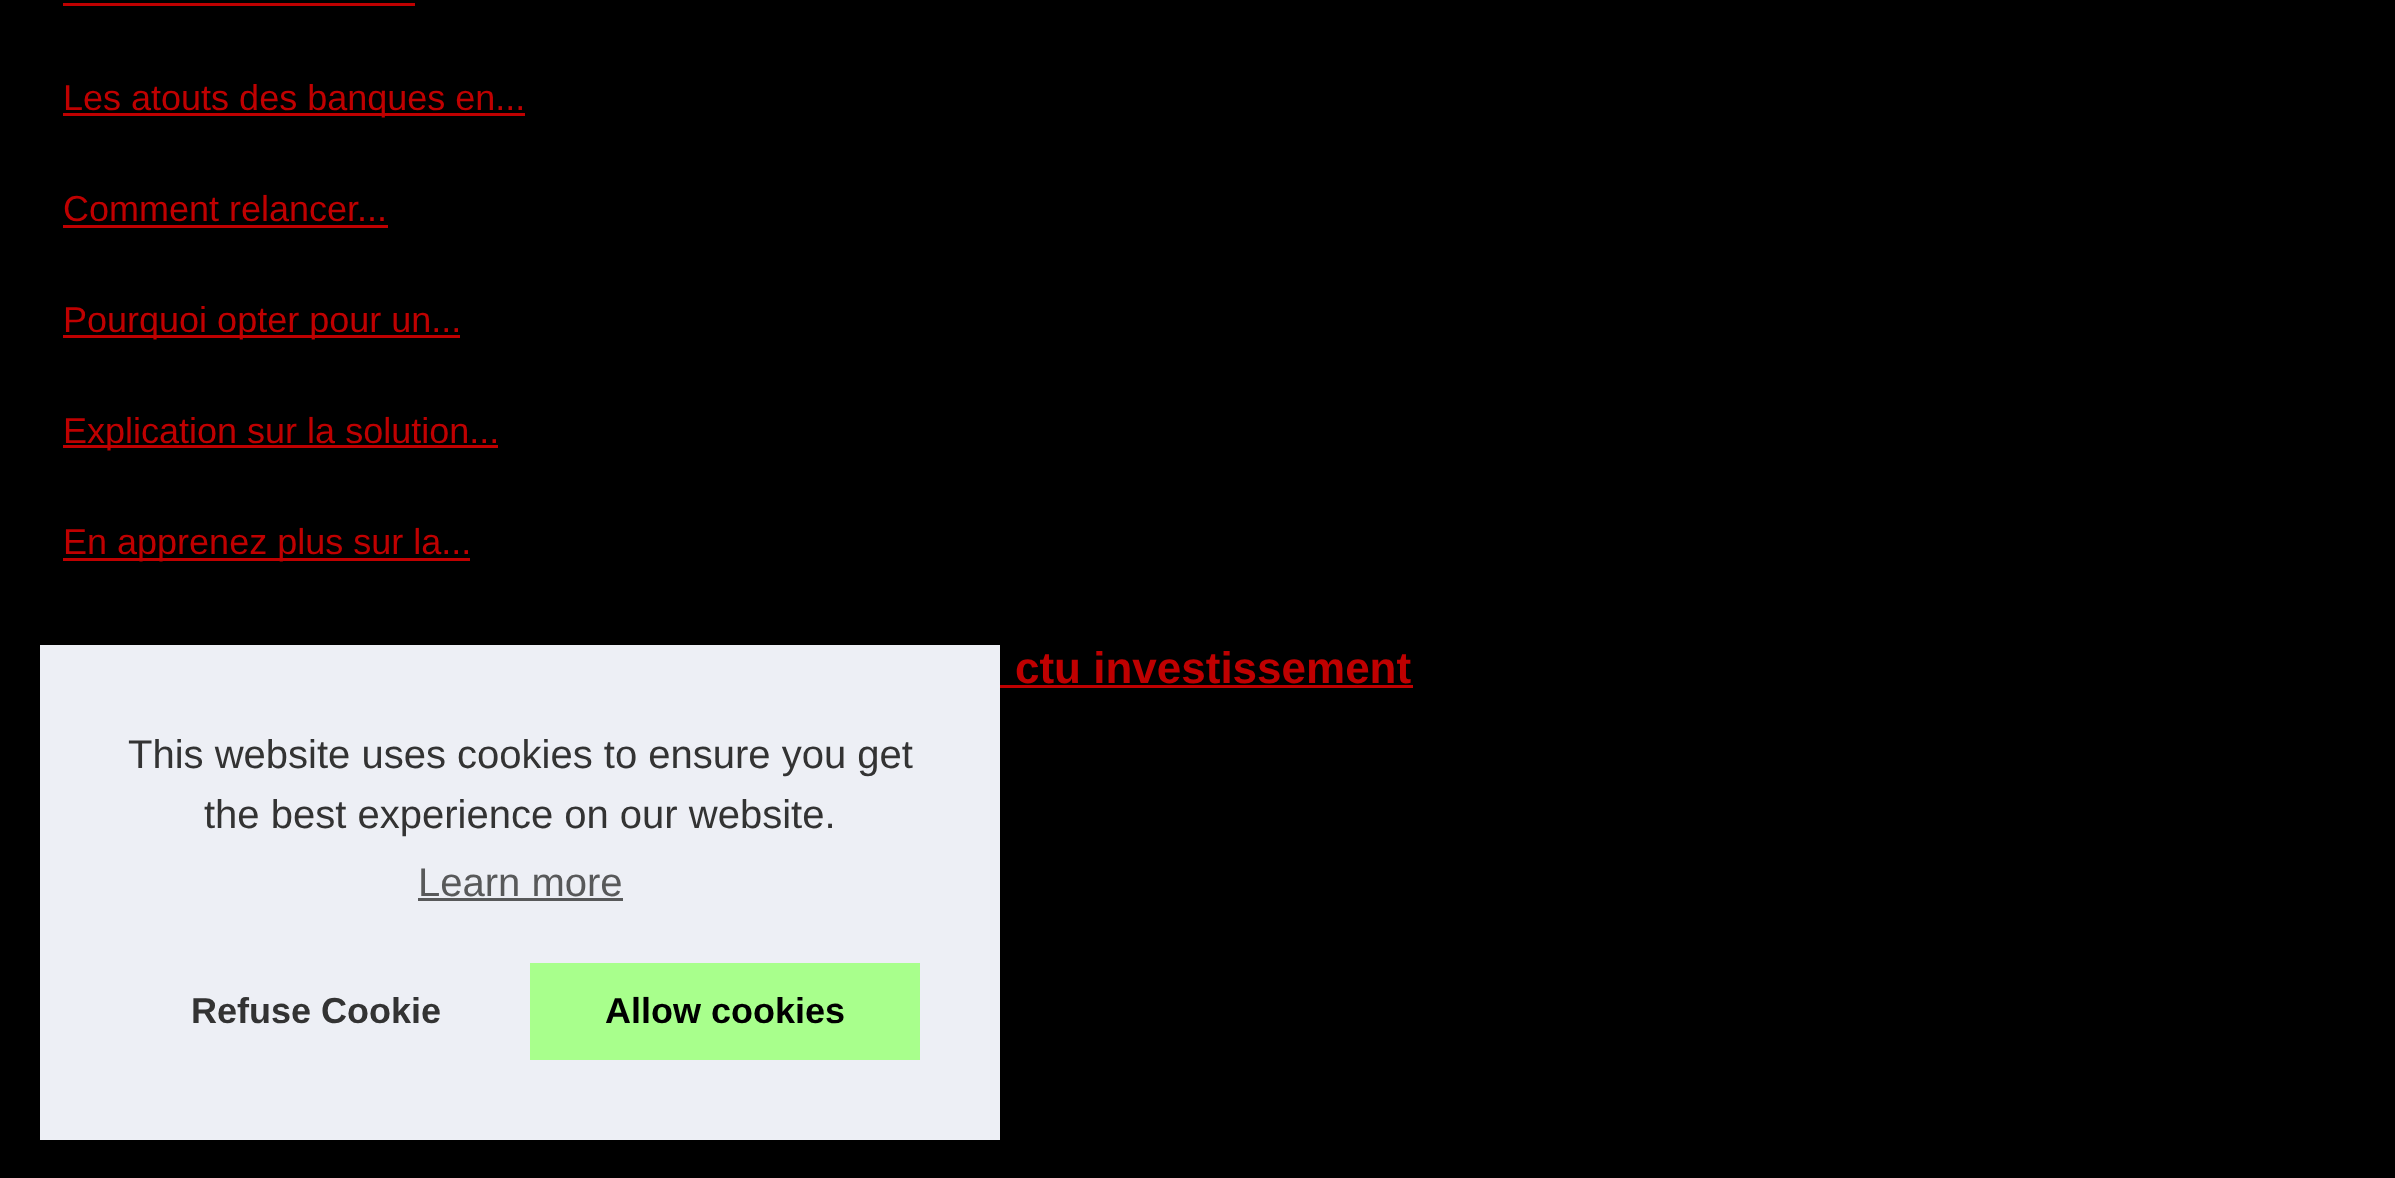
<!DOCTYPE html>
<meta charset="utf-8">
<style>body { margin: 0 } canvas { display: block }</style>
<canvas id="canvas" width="2395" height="1178"></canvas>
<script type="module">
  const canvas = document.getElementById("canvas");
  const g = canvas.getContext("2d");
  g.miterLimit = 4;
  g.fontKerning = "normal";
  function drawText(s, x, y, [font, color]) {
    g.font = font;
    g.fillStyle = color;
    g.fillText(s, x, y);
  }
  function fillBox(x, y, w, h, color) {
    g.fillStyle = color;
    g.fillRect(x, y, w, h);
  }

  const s1 = ["36px Liberation Sans", "#BF0000"];
  const s2 = ["bold 44px Liberation Sans", "#BF0000"];
  const s3 = ["40px Liberation Sans", "#333333"];
  const s4 = ["40px Liberation Sans", "#58595A"];
  const s5 = ["bold 36px Liberation Sans", "#333333"];
  const s6 = ["bold 36px Liberation Sans", "#000000"];

  fillBox(0, 0, 2395, 1178, "#000000");
  fillBox(63, 3, 352, 3, "#BF0000");
  fillBox(63, 113, 462, 3, "#BF0000");
  drawText("Les atouts des banques en...", 63, 110, s1);
  drawText("Comment relancer...", 63, 221, s1);
  fillBox(63, 225, 325, 3, "#BF0000");
  fillBox(63, 335, 397, 3, "#BF0000");
  drawText("Pourquoi opter pour un...", 63, 332, s1);
  fillBox(63, 445, 435, 3, "#BF0000");
  drawText("Explication sur la solution...", 63, 443, s1);
  fillBox(63, 558, 407, 3, "#BF0000");
  drawText("En apprenez plus sur la...", 63, 554, s1);
  drawText("ctu investissement", 1015, 683, s2);
  fillBox(1000, 685, 413, 3, "#BF0000");
  fillBox(40, 645, 960, 495, "#EDEFF5");
  drawText("This website uses cookies to ensure you get", 128, 768, s3);
  drawText("the best experience on our website.", 204, 828, s3);
  drawText("Learn more", 418, 896, s4);
  fillBox(418, 898, 205, 3, "#58595A");
  drawText("Refuse Cookie", 191, 1023, s5);
  fillBox(530, 963, 390, 97, "#A8FF8C");
  drawText("Allow cookies", 605, 1023, s6);
</script>
